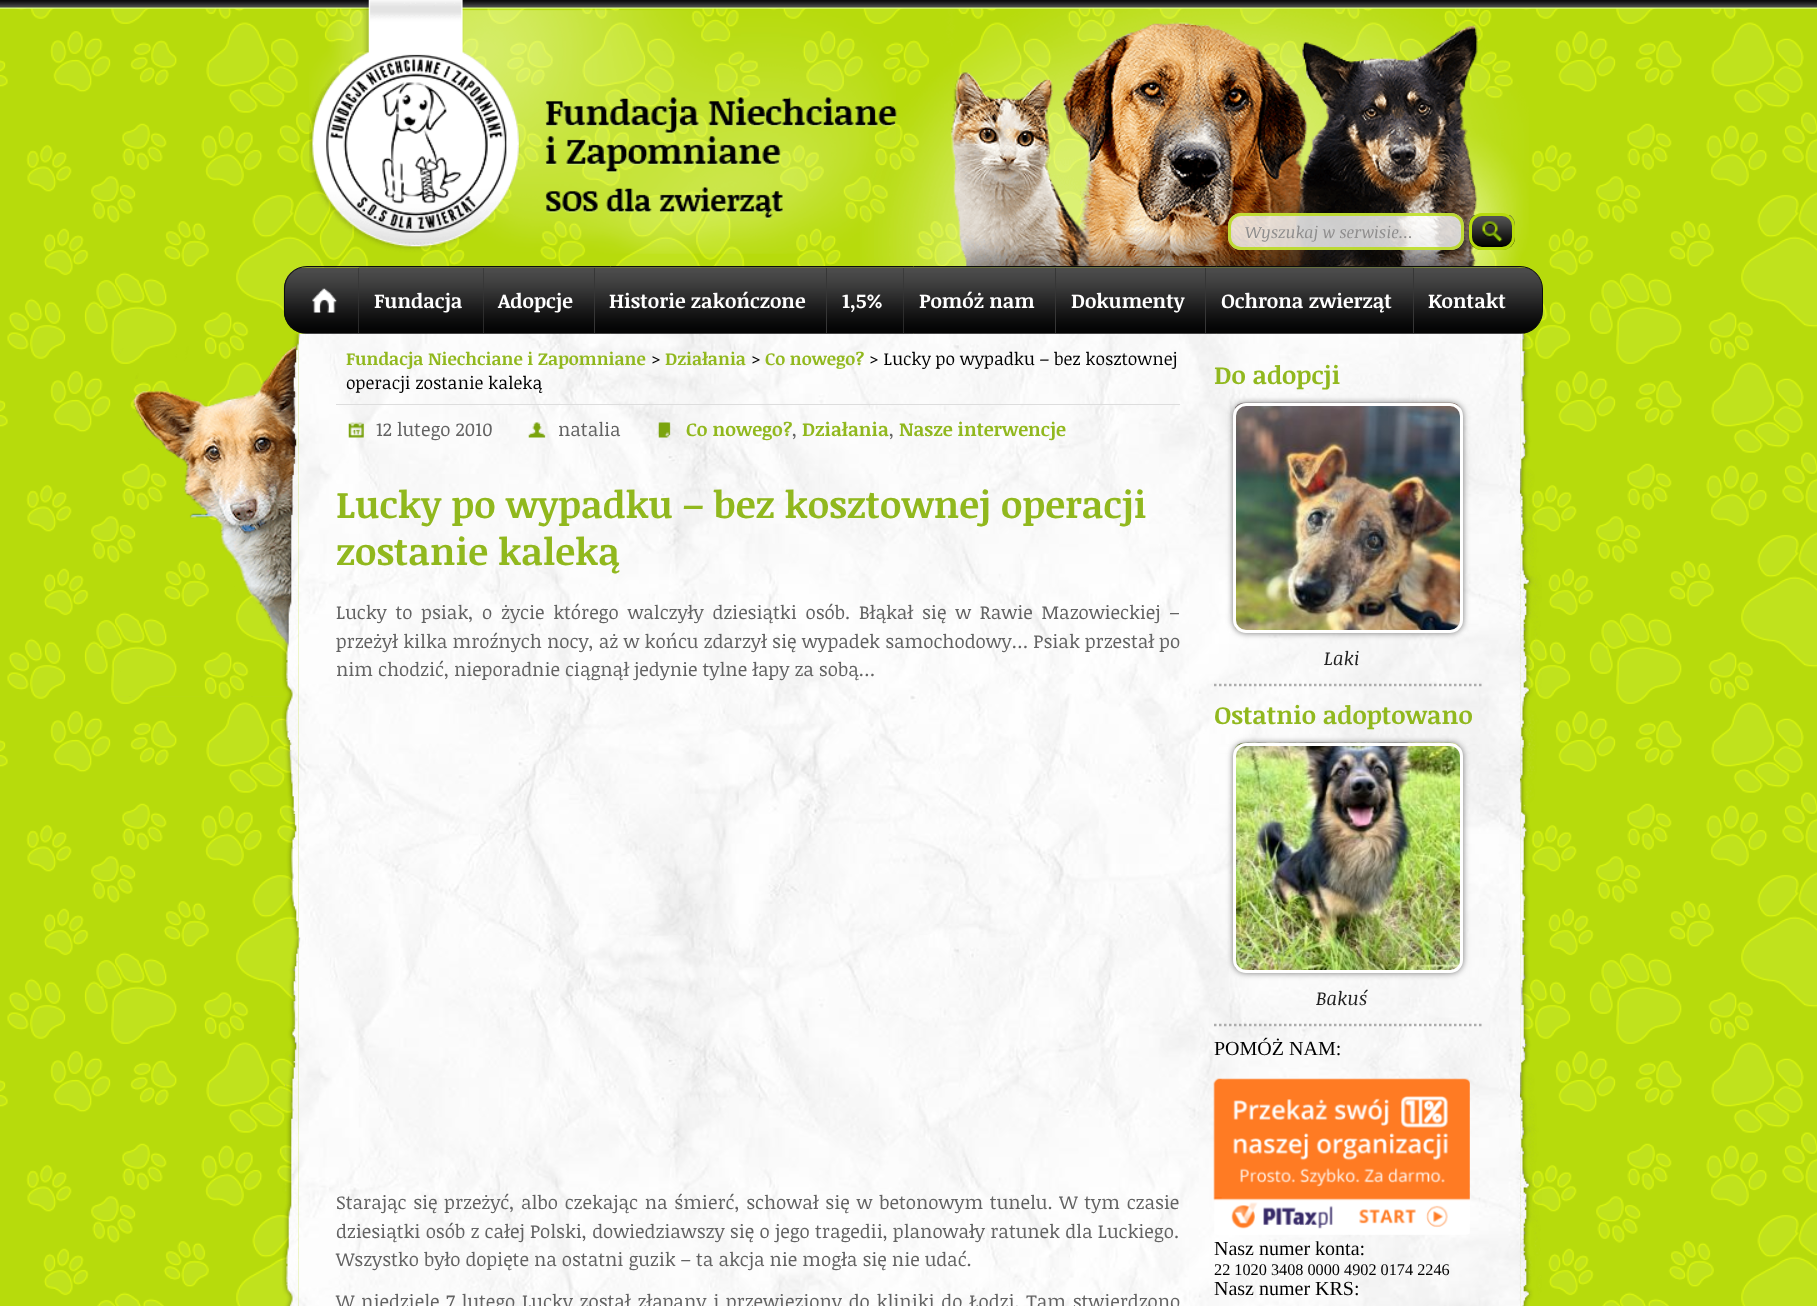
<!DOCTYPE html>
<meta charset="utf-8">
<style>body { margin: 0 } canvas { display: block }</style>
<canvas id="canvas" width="1817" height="1306"></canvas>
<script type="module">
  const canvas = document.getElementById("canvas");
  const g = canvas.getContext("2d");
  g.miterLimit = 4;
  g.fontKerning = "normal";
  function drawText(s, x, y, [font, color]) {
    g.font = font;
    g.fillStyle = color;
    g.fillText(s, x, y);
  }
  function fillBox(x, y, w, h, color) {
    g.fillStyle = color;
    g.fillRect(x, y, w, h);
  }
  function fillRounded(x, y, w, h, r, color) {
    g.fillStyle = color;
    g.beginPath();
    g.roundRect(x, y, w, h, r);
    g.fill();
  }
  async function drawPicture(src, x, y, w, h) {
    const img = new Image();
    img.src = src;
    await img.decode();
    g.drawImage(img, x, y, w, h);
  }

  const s1 = ["italic 16.25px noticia", "#8E8D8D"];
  const s2 = ["bold 20px noticia", "#FFFFFF"];
  const s3 = ["bold 17.5px noticia", "#91B81E"];
  const s4 = ["17.5px noticia", "#000000"];
  const s5 = ["18.75px noticia", "#636363"];
  const s6 = ["bold 18.75px noticia", "#91B81E"];
  const s7 = ["bold 37.5px noticia", "#91B81E"];
  const s8 = ["bold 25px noticia", "#91B81E"];
  const s9 = ["italic 18.75px noticia", "#222222"];
  const s10 = ["20px Liberation Serif", "#000000"];
  const s11 = ["16.25px Liberation Serif", "#000000"];

  fillBox(0, 0, 1817, 1306, "#FFFFFF");
  await drawPicture("pic1.png", 0, 8, 1817, 1298);
  await drawPicture("pic5.png", 860, 8, 669, 258);
  await drawPicture("pic2.png", 0, 0, 1817, 9);
  await drawPicture("pic3.png", 118, 346, 179, 351);
  await drawPicture("pic4.png", 309, 0, 588, 254);
  fillRounded(1228, 213, 236, 37, 13, "rgba(255, 255, 255, 0.8)");
  g.beginPath();
  g.roundRect(1229.5, 214.5, 233, 34, 11.5);
  g.strokeStyle = "rgba(183, 219, 12, 0.8)";
  g.lineWidth = 3;
  g.stroke();
  drawText("Wyszukaj w serwisie...", 1245, 238, s1);
  await drawPicture("pic6.png", 1468, 215, 47, 35);
  g.beginPath();
  g.roundRect(1470.5, 214.5, 43, 34, 11.5);
  g.strokeStyle = "#B7DB0C";
  g.stroke();
  await drawPicture("pic7.png", 283, 267, 1260, 67);
  g.beginPath();
  g.roundRect(284.5, 266.5, 1258, 67, 22.5);
  g.strokeStyle = "#0C0D0E";
  g.lineWidth = 1;
  g.stroke();
  await drawPicture("pic8.png", 312, 288, 25, 25);
  fillBox(358, 268, 1, 65, "#363636");
  await drawPicture("pic9.png", 358, 267, 126, 66);
  fillBox(483, 268, 1, 65, "#363636");
  drawText("Fundacja", 374, 308, s2);
  await drawPicture("pic10.png", 483, 267, 112, 66);
  fillBox(594, 268, 1, 65, "#363636");
  drawText("Adopcje", 498, 308, s2);
  await drawPicture("pic11.png", 595, 267, 233, 1);
  fillBox(826, 268, 1, 65, "#363636");
  drawText("Historie zakończone", 609, 308, s2);
  await drawPicture("pic12.png", 827, 267, 77, 1);
  fillBox(903, 268, 1, 65, "#363636");
  drawText("1,5%", 842, 308, s2);
  await drawPicture("pic13.png", 903, 267, 154, 66);
  fillBox(1055, 268, 1, 65, "#363636");
  drawText("Pomóż nam", 919, 308, s2);
  await drawPicture("pic14.png", 1056, 267, 151, 1);
  fillBox(1205, 268, 1, 65, "#363636");
  drawText("Dokumenty", 1071, 308, s2);
  await drawPicture("pic15.png", 1206, 267, 208, 1);
  fillBox(1413, 268, 1, 65, "#363636");
  drawText("Ochrona zwierząt", 1221, 308, s2);
  await drawPicture("pic16.png", 1414, 267, 105, 1);
  drawText("Kontakt", 1428, 308, s2);
  await drawPicture("pic17.png", 282, 333, 1260, 973);
  await drawPicture("pic18.png", 298, 333, 1222, 973);
  fillBox(336, 404, 844, 1, "#DDDDDD");
  drawText("Fundacja Niechciane i Zapomniane", 346, 365, s3);
  drawText(">", 651, 365, s4);
  drawText("Działania", 665, 365, s3);
  drawText(">", 751, 365, s4);
  drawText("Co nowego?", 765, 365, s3);
  drawText("> Lucky po wypadku – bez kosztownej", 869, 365, s4);
  drawText("operacji zostanie kaleką", 346, 389, s4);
  await drawPicture("pic19.png", 348, 422, 16, 16);
  drawText("12 lutego 2010", 376, 436, s5);
  await drawPicture("pic20.png", 528, 422, 18, 16);
  drawText("natalia", 558, 436, s5);
  await drawPicture("pic21.png", 658, 422, 13, 16);
  drawText("Co nowego?", 686, 436, s6);
  drawText(",", 792, 436, s5);
  drawText("Działania", 802, 436, s6);
  drawText(",", 889, 436, s5);
  drawText("Nasze interwencje", 899, 436, s6);
  drawText("Lucky po wypadku – bez kosztownej operacji", 336, 518, s7);
  drawText("zostanie kaleką", 336, 565, s7);
  g.wordSpacing = "3.75px";
  drawText("Lucky to psiak, o życie którego walczyły dziesiątki osób. Błąkał się w Rawie Mazowieckiej –", 336, 619, s5);
  g.wordSpacing = "0.2px";
  drawText("przeżył kilka mroźnych nocy, aż w końcu zdarzył się wypadek samochodowy… Psiak przestał po", 336, 648, s5);
  g.wordSpacing = "0px";
  drawText("nim chodzić, nieporadnie ciągnął jedynie tylne łapy za sobą…", 336, 676, s5);
  g.wordSpacing = "1.75px";
  drawText("Starając się przeżyć, albo czekając na śmierć, schował się w betonowym tunelu. W tym czasie", 336, 1209, s5);
  g.wordSpacing = "0.25px";
  drawText("dziesiątki osób z całej Polski, dowiedziawszy się o jego tragedii, planowały ratunek dla Luckiego.", 336, 1238, s5);
  g.wordSpacing = "0px";
  drawText("Wszystko było dopięte na ostatni guzik – ta akcja nie mogła się nie udać.", 336, 1266, s5);
  g.wordSpacing = "1.75px";
  drawText("W niedzielę 7 lutego Lucky został złapany i przewieziony do kliniki do Łodzi. Tam stwierdzono", 336, 1308, s5);
  g.wordSpacing = "0px";
  drawText("Do adopcji", 1214, 384, s8);
  g.beginPath();
  g.moveTo(1214, 685);
  g.lineTo(1482.5, 685);
  g.strokeStyle = "#ACACAC";
  g.lineWidth = 2.5;
  g.setLineDash([2.5, 2.5]);
  g.stroke();
  g.fillStyle = "#777777";
  g.filter = "blur(3px)";
  g.beginPath();
  g.roundRect(1233, 403, 230, 230, 13);
  g.fill();
  g.filter = "none";
  await drawPicture("pic22.png", 1235, 402, 225, 231);
  g.beginPath();
  g.roundRect(1234.5, 404.5, 227, 227, 11.5);
  g.strokeStyle = "#FFFFFF";
  g.lineWidth = 3;
  g.setLineDash([]);
  g.stroke();
  drawText("Laki", 1324, 665, s9);
  drawText("Ostatnio adoptowano", 1214, 724, s8);
  g.beginPath();
  g.moveTo(1214, 1025);
  g.lineTo(1482.5, 1025);
  g.strokeStyle = "#ACACAC";
  g.lineWidth = 2.5;
  g.setLineDash([2.5, 2.5]);
  g.stroke();
  g.fillStyle = "#777777";
  g.filter = "blur(3px)";
  g.beginPath();
  g.roundRect(1233, 743, 230, 230, 13);
  g.fill();
  g.filter = "none";
  await drawPicture("pic23.png", 1235, 742, 225, 231);
  g.beginPath();
  g.roundRect(1234.5, 744.5, 227, 227, 11.5);
  g.strokeStyle = "#FFFFFF";
  g.lineWidth = 3;
  g.setLineDash([]);
  g.stroke();
  drawText("Bakuś", 1316, 1005, s9);
  drawText("POMÓŻ NAM:", 1214, 1055, s10);
  await drawPicture("pic24.png", 1213, 1078, 257, 157);
  drawText("Nasz numer konta:", 1214, 1255, s10);
  drawText("22 1020 3408 0000 4902 0174 2246", 1214, 1275, s11);
  drawText("Nasz numer KRS:", 1214, 1295, s10);
</script>
